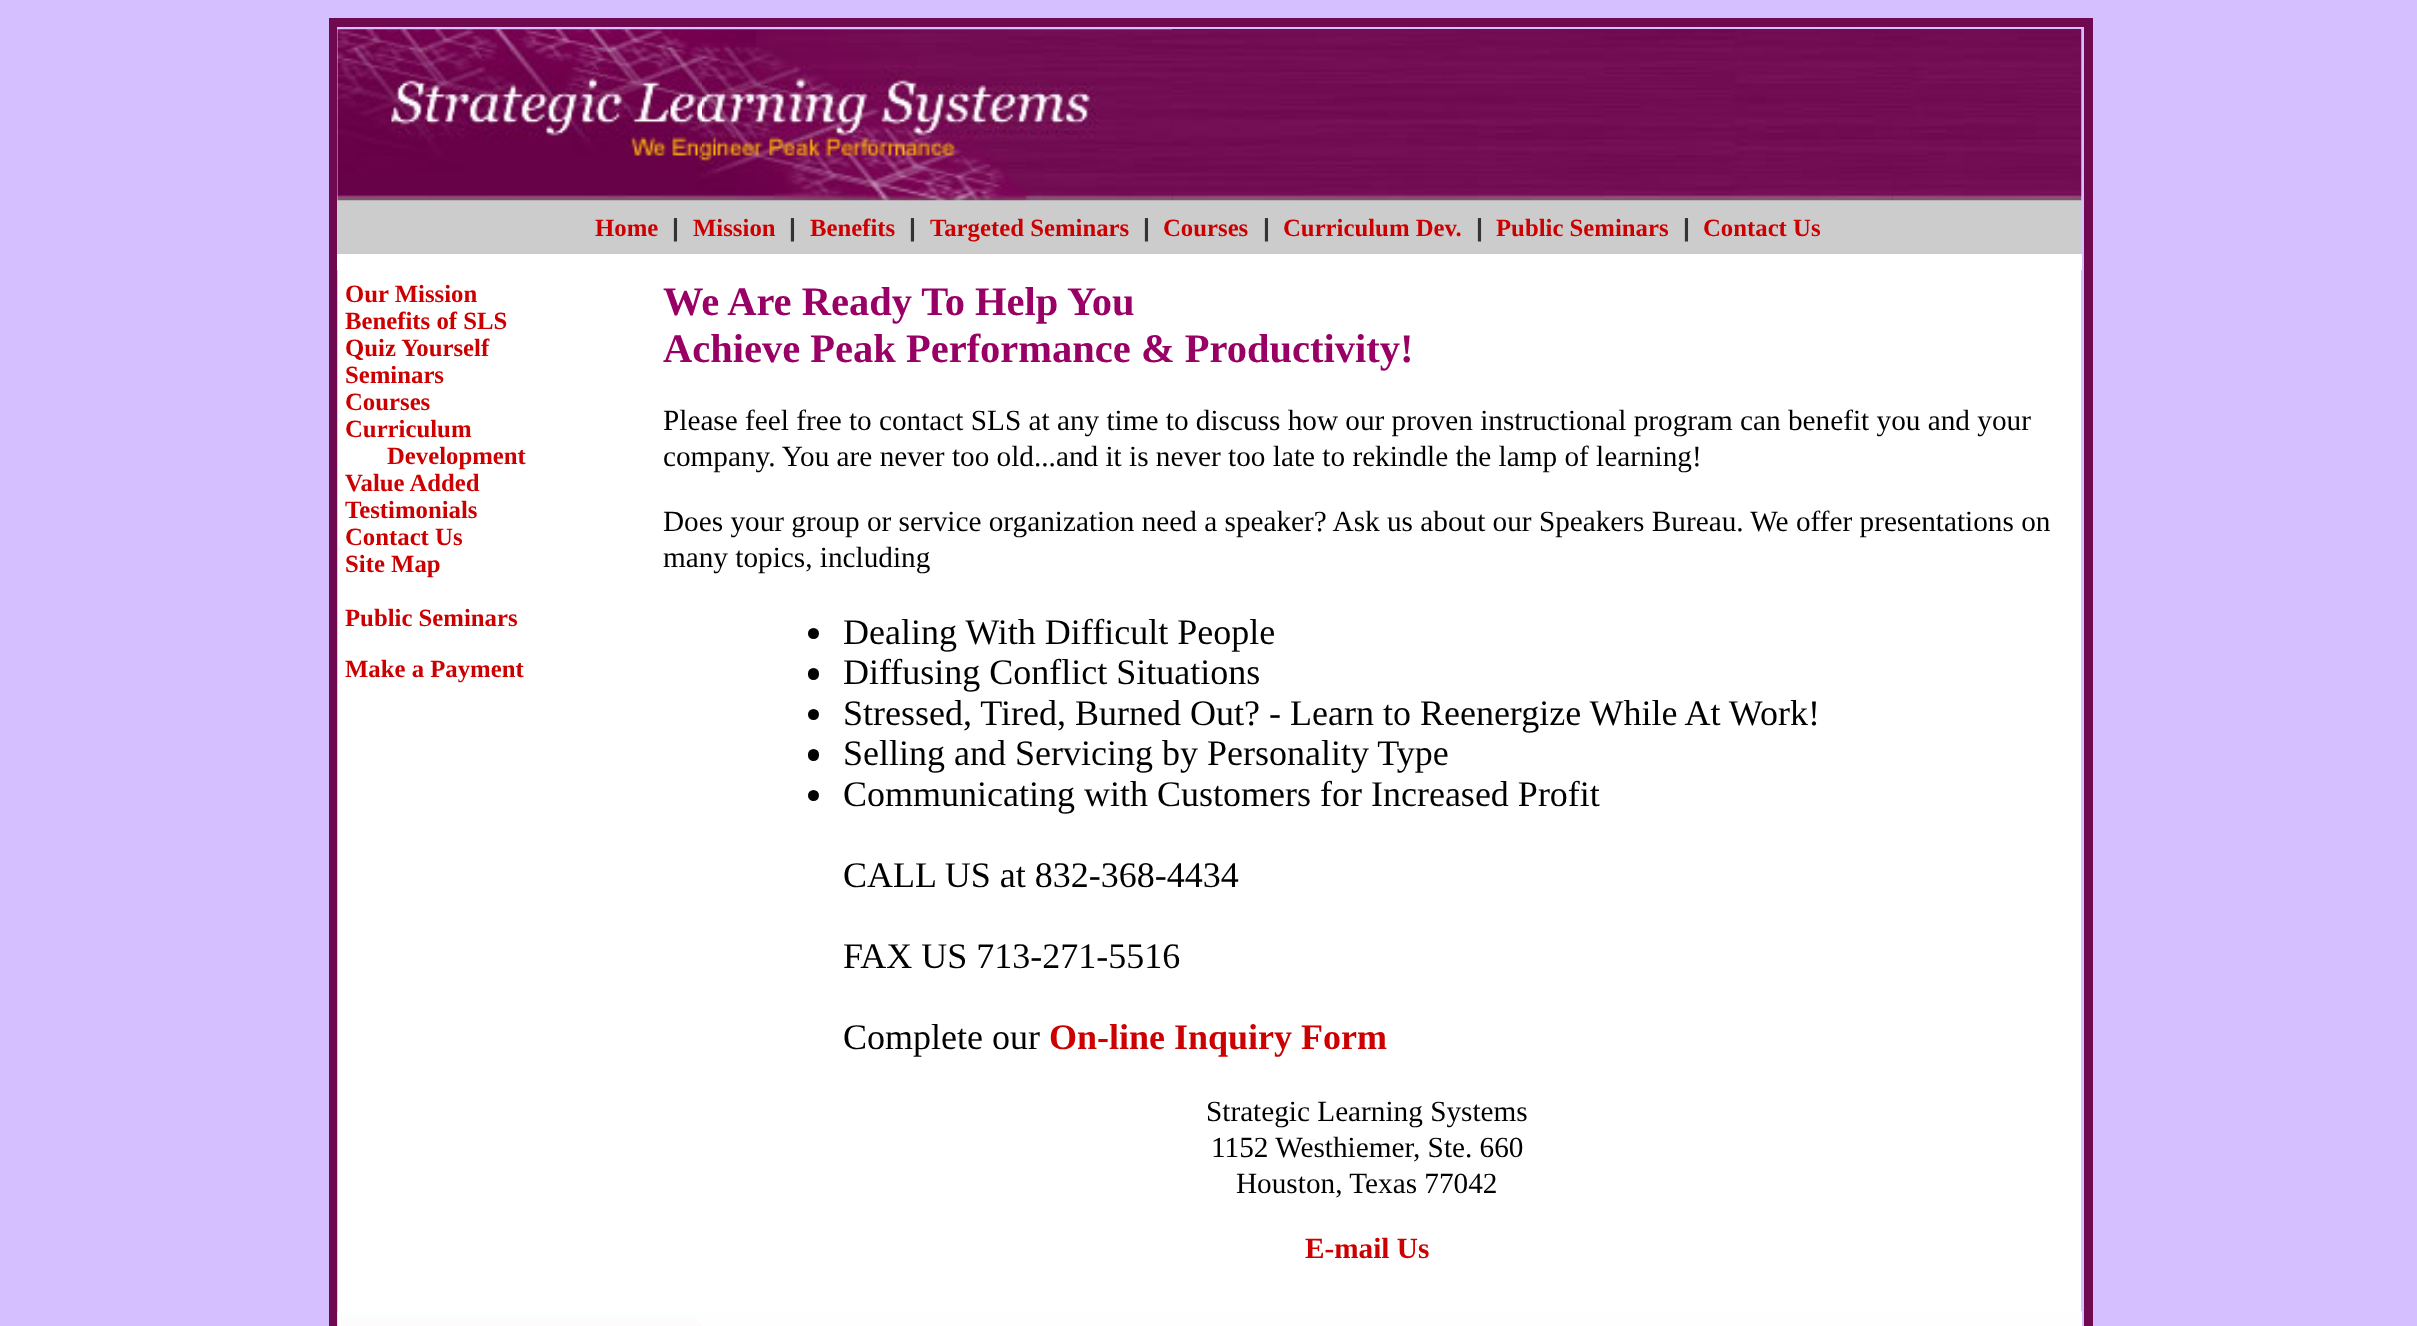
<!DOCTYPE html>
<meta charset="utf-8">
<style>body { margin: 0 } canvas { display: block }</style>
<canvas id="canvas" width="2417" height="1326"></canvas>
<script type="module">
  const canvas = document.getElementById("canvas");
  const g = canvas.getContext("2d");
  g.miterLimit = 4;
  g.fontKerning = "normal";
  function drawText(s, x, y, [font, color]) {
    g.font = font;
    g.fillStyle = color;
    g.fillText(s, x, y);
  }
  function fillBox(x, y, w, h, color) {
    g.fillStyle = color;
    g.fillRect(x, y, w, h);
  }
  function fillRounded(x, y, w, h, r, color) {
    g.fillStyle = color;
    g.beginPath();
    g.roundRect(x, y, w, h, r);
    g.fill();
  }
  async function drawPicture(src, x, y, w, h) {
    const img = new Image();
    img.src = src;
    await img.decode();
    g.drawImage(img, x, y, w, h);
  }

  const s1 = ["bold 24.75px Liberation Serif", "#CC0000"];
  const s2 = ["bold 24.75px Liberation Sans", "#333333"];
  const s3 = ["bold 40.5px Liberation Serif", "#990066"];
  const s4 = ["29.25px Liberation Serif", "#000000"];
  const s5 = ["36px Liberation Serif", "#000000"];
  const s6 = ["bold 36px Liberation Serif", "#CC0000"];
  const s7 = ["bold 29.25px Liberation Serif", "#CC0000"];

  fillBox(0, 0, 2417, 1326, "#D5BFFF");
  g.strokeStyle = "#6F0A50";
  g.lineWidth = 7;
  g.strokeRect(332.5, 21.5, 1757, 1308);
  g.lineWidth = 2;
  g.strokeRect(336, 26, 1749, 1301);
  fillBox(338, 200, 1743, 54, "#CCCCCC");
  await drawPicture("pic1.png", 337, 29, 365, 172);
  fillBox(1172, 29, 720, 171, "#700B51");
  await drawPicture("pic2.png", 702, 29, 471, 172);
  fillBox(1892, 29, 189, 171, "#751056");
  await drawPicture("pic3.png", 1172, 30, 721, 171);
  await drawPicture("pic4.png", 1892, 29, 190, 172);
  drawText("Home", 595, 236, s1);
  drawText("|", 672, 236, s2);
  drawText("Mission", 693, 236, s1);
  drawText("|", 789, 236, s2);
  drawText("Benefits", 810, 236, s1);
  drawText("|", 909, 236, s2);
  drawText("Targeted Seminars", 930, 236, s1);
  drawText("|", 1143, 236, s2);
  drawText("Courses", 1163, 236, s1);
  drawText("|", 1263, 236, s2);
  drawText("Curriculum Dev.", 1283, 236, s1);
  drawText("|", 1476, 236, s2);
  drawText("Public Seminars", 1496, 236, s1);
  drawText("|", 1683, 236, s2);
  drawText("Contact Us", 1703, 236, s1);
  fillBox(337, 254, 1745, 16, "#FFFFFF");
  fillBox(338, 270, 1743, 1042, "#FFFFFF");
  drawText("Our Mission", 345, 302, s1);
  drawText("Benefits of SLS", 345, 329, s1);
  drawText("Quiz Yourself", 345, 356, s1);
  drawText("Seminars", 345, 383, s1);
  drawText("Courses", 345, 410, s1);
  drawText("Curriculum", 345, 437, s1);
  drawText("Development", 387, 464, s1);
  drawText("Value Added", 345, 491, s1);
  drawText("Testimonials", 345, 518, s1);
  drawText("Contact Us", 345, 545, s1);
  drawText("Site Map", 345, 572, s1);
  drawText("Public Seminars", 345, 626, s1);
  drawText("Make a Payment", 345, 677, s1);
  drawText("We Are Ready To Help You", 663, 315, s3);
  drawText("Achieve Peak Performance & Productivity!", 663, 362, s3);
  drawText("Please feel free to contact SLS at any time to discuss how our proven instructional program can benefit you and your", 663, 430, s4);
  drawText("company. You are never too old...and it is never too late to rekindle the lamp of learning!", 663, 466, s4);
  drawText("Does your group or service organization need a speaker? Ask us about our Speakers Bureau. We offer presentations on", 663, 531, s4);
  drawText("many topics, including", 663, 567, s4);
  g.beginPath();
  g.arc(813.5, 633.5, 5.5, 0, Math.PI * 2);
  g.fill();
  drawText("Dealing With Difficult People", 843, 644, s5);
  fillRounded(808, 668, 11, 12, 5.5, "#000000");
  drawText("Diffusing Conflict Situations", 843, 684, s5);
  g.beginPath();
  g.arc(813.5, 714.5, 5.5, 0, Math.PI * 2);
  g.fill();
  drawText("Stressed, Tired, Burned Out? - Learn to Reenergize While At Work!", 843, 725, s5);
  fillRounded(808, 749, 11, 12, 5.5, "#000000");
  drawText("Selling and Servicing by Personality Type", 843, 765, s5);
  g.beginPath();
  g.arc(813.5, 795.5, 5.5, 0, Math.PI * 2);
  g.fill();
  drawText("Communicating with Customers for Increased Profit", 843, 806, s5);
  drawText("CALL US at 832-368-4434", 843, 887, s5);
  drawText("FAX US 713-271-5516", 843, 968, s5);
  drawText("Complete our", 843, 1049, s5);
  drawText("On-line Inquiry Form", 1049, 1049, s6);
  drawText("Strategic Learning Systems", 1206, 1121, s4);
  drawText("1152 Westhiemer, Ste. 660", 1211, 1157, s4);
  drawText("Houston, Texas 77042", 1236, 1193, s4);
  drawText("E-mail Us", 1305, 1258, s7);
  await drawPicture("pic5.png", 337, 1311, 365, 15);
  fillBox(702, 1312, 1191, 14, "#FEFEFE");
  fillBox(1893, 1311, 189, 15, "#FEFEFE");
</script>
